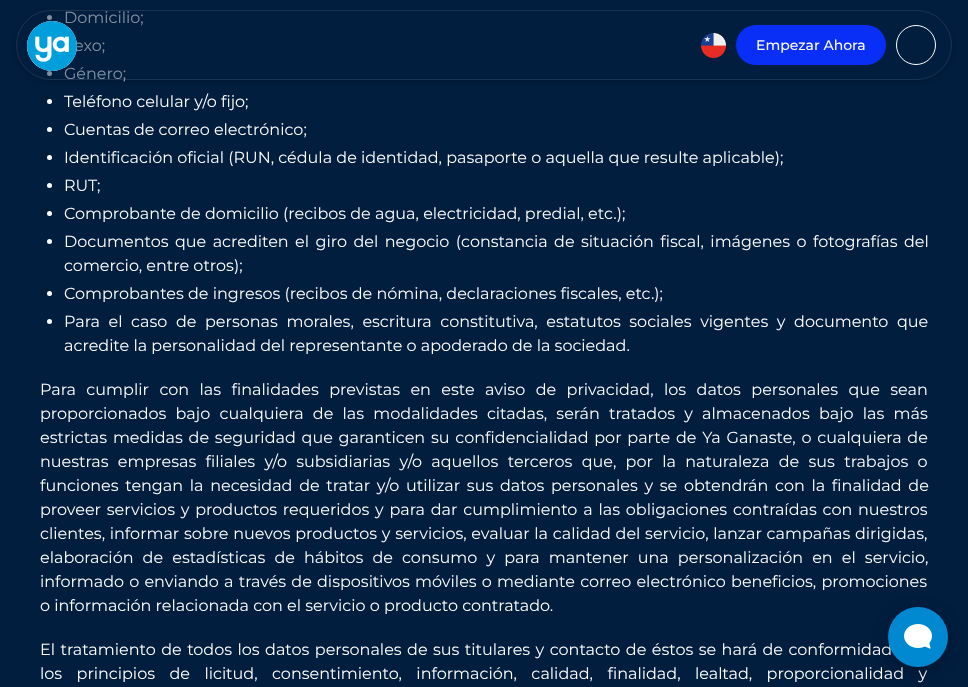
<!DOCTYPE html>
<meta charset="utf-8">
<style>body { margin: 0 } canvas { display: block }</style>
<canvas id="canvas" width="968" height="687"></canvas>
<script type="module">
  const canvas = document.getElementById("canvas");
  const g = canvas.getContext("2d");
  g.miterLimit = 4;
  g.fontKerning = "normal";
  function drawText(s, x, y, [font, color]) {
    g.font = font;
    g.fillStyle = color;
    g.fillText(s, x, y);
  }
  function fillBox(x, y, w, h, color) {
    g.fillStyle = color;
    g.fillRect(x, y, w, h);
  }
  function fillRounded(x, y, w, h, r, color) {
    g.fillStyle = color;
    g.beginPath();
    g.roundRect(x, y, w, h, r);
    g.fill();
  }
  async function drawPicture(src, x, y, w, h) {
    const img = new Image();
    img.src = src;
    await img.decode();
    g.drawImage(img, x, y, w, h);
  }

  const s1 = ["16px Montserrat", "#FFFFFF"];
  const s2 = ["500 14px Montserrat", "#FFFFFF"];

  fillBox(0, 0, 968, 687, "#011E3F");
  g.fillStyle = "#FFFFFF";
  g.beginPath();
  g.arc(49.5, 17.5, 2.5, 0, Math.PI * 2);
  g.fill();
  drawText("Domicilio;", 64, 23, s1);
  drawText("exo;", 74, 51, s1);
  g.beginPath();
  g.arc(49.5, 73.5, 2.5, 0, Math.PI * 2);
  g.fill();
  drawText("Género;", 64, 79, s1);
  g.beginPath();
  g.arc(49.5, 101.5, 2.5, 0, Math.PI * 2);
  g.fill();
  drawText("Teléfono celular y/o fijo;", 64, 107, s1);
  g.beginPath();
  g.arc(49.5, 129.5, 2.5, 0, Math.PI * 2);
  g.fill();
  drawText("Cuentas de correo electrónico;", 64, 135, s1);
  g.beginPath();
  g.arc(49.5, 157.5, 2.5, 0, Math.PI * 2);
  g.fill();
  drawText("Identificación oficial (RUN, cédula de identidad, pasaporte o aquella que resulte aplicable);", 64, 163, s1);
  g.beginPath();
  g.arc(49.5, 185.5, 2.5, 0, Math.PI * 2);
  g.fill();
  drawText("RUT;", 64, 191, s1);
  g.beginPath();
  g.arc(49.5, 213.5, 2.5, 0, Math.PI * 2);
  g.fill();
  drawText("Comprobante de domicilio (recibos de agua, electricidad, predial, etc.);", 64, 219, s1);
  g.beginPath();
  g.arc(49.5, 241.5, 2.5, 0, Math.PI * 2);
  g.fill();
  g.wordSpacing = "2.25px";
  drawText("Documentos que acrediten el giro del negocio (constancia de situación fiscal, imágenes o fotografías del", 64, 247, s1);
  g.wordSpacing = "0px";
  drawText("comercio, entre otros);", 64, 271, s1);
  g.beginPath();
  g.arc(49.5, 293.5, 2.5, 0, Math.PI * 2);
  g.fill();
  drawText("Comprobantes de ingresos (recibos de nómina, declaraciones fiscales, etc.);", 64, 299, s1);
  g.beginPath();
  g.arc(49.5, 321.5, 2.5, 0, Math.PI * 2);
  g.fill();
  g.wordSpacing = "4.4px";
  drawText("Para el caso de personas morales, escritura constitutiva, estatutos sociales vigentes y documento que", 64, 327, s1);
  g.wordSpacing = "0px";
  drawText("acredite la personalidad del representante o apoderado de la sociedad.", 64, 351, s1);
  g.wordSpacing = "6.25px";
  drawText("Para cumplir con las finalidades previstas en este aviso de privacidad, los datos personales que sean", 40, 395, s1);
  g.wordSpacing = "5px";
  drawText("proporcionados bajo cualquiera de las modalidades citadas, serán tratados y almacenados bajo las más", 40, 419, s1);
  g.wordSpacing = "1.6px";
  drawText("estrictas medidas de seguridad que garanticen su confidencialidad por parte de Ya Ganaste, o cualquiera de", 40, 443, s1);
  g.wordSpacing = "5.1px";
  drawText("nuestras empresas filiales y/o subsidiarias y/o aquellos terceros que, por la naturaleza de sus trabajos o", 40, 467, s1);
  g.wordSpacing = "2.5px";
  drawText("funciones tengan la necesidad de tratar y/o utilizar sus datos personales y se obtendrán con la finalidad de", 40, 491, s1);
  g.wordSpacing = "1.6px";
  drawText("proveer servicios y productos requeridos y para dar cumplimiento a las obligaciones contraídas con nuestros", 40, 515, s1);
  g.wordSpacing = "0.5px";
  drawText("clientes, informar sobre nuevos productos y servicios, evaluar la calidad del servicio, lanzar campañas dirigidas,", 40, 539, s1);
  g.wordSpacing = "4.9px";
  drawText("elaboración de estadísticas de hábitos de consumo y para mantener una personalización en el servicio,", 40, 563, s1);
  g.wordSpacing = "1px";
  drawText("informado o enviando a través de dispositivos móviles o mediante correo electrónico beneficios, promociones", 40, 587, s1);
  g.wordSpacing = "0px";
  drawText("o información relacionada con el servicio o producto contratado.", 40, 611, s1);
  g.wordSpacing = "1.25px";
  drawText("El tratamiento de todos los datos personales de sus titulares y contacto de éstos se hará de conformidad", 40, 655, s1);
  g.wordSpacing = "10.25px";
  drawText("los principios de licitud, consentimiento, información, calidad, finalidad, lealtad, proporcionalidad y", 40, 679, s1);
  g.save();
  g.beginPath();
  g.moveTo(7, 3);
  g.lineTo(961, 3);
  g.lineTo(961, 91);
  g.lineTo(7, 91);
  g.closePath();
  g.moveTo(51, 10);
  g.lineTo(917, 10);
  g.bezierCurveTo(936.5, 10, 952, 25.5, 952, 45);
  g.bezierCurveTo(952, 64.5, 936.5, 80, 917, 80);
  g.lineTo(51, 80);
  g.bezierCurveTo(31.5, 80, 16, 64.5, 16, 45);
  g.bezierCurveTo(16, 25.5, 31.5, 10, 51, 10);
  g.closePath();
  g.clip("evenodd");
  g.fillStyle = "rgba(0, 0, 0, 0.2)";
  g.filter = "blur(2.5px)";
  g.beginPath();
  g.roundRect(16, 12, 936, 70, 35);
  g.fill();
  g.filter = "none";
  g.restore();
  fillRounded(16, 10, 936, 70, 35, "rgba(1, 30, 62, 0.5)");
  g.beginPath();
  g.roundRect(16.5, 10.5, 935, 69, 34.5);
  g.strokeStyle = "rgba(255, 255, 255, 0.1)";
  g.stroke();
  g.fillStyle = "#FFFFFF";
  g.beginPath();
  g.arc(52, 46, 25, 0, Math.PI * 2);
  g.fill();
  await drawPicture("pic1.png", 27, 21, 50, 50);
  await drawPicture("pic2.png", 701, 32, 25, 26);
  fillRounded(736, 25, 150, 40, 20, "#092EF6");
  g.wordSpacing = "0px";
  drawText("Empezar Ahora", 756, 50, s2);
  g.beginPath();
  g.arc(916, 45, 19.5, 0, Math.PI * 2);
  g.strokeStyle = "#FFFFFF";
  g.stroke();
  g.fillStyle = "rgba(0, 0, 0, 0.25)";
  g.filter = "blur(8px)";
  g.beginPath();
  g.roundRect(888, 611, 60, 60, 30);
  g.fill();
  g.filter = "none";
  g.fillStyle = "#0088D1";
  g.beginPath();
  g.arc(918, 637, 30, 0, Math.PI * 2);
  g.fill();
  await drawPicture("pic3.png", 904, 624, 28, 25);
</script>
